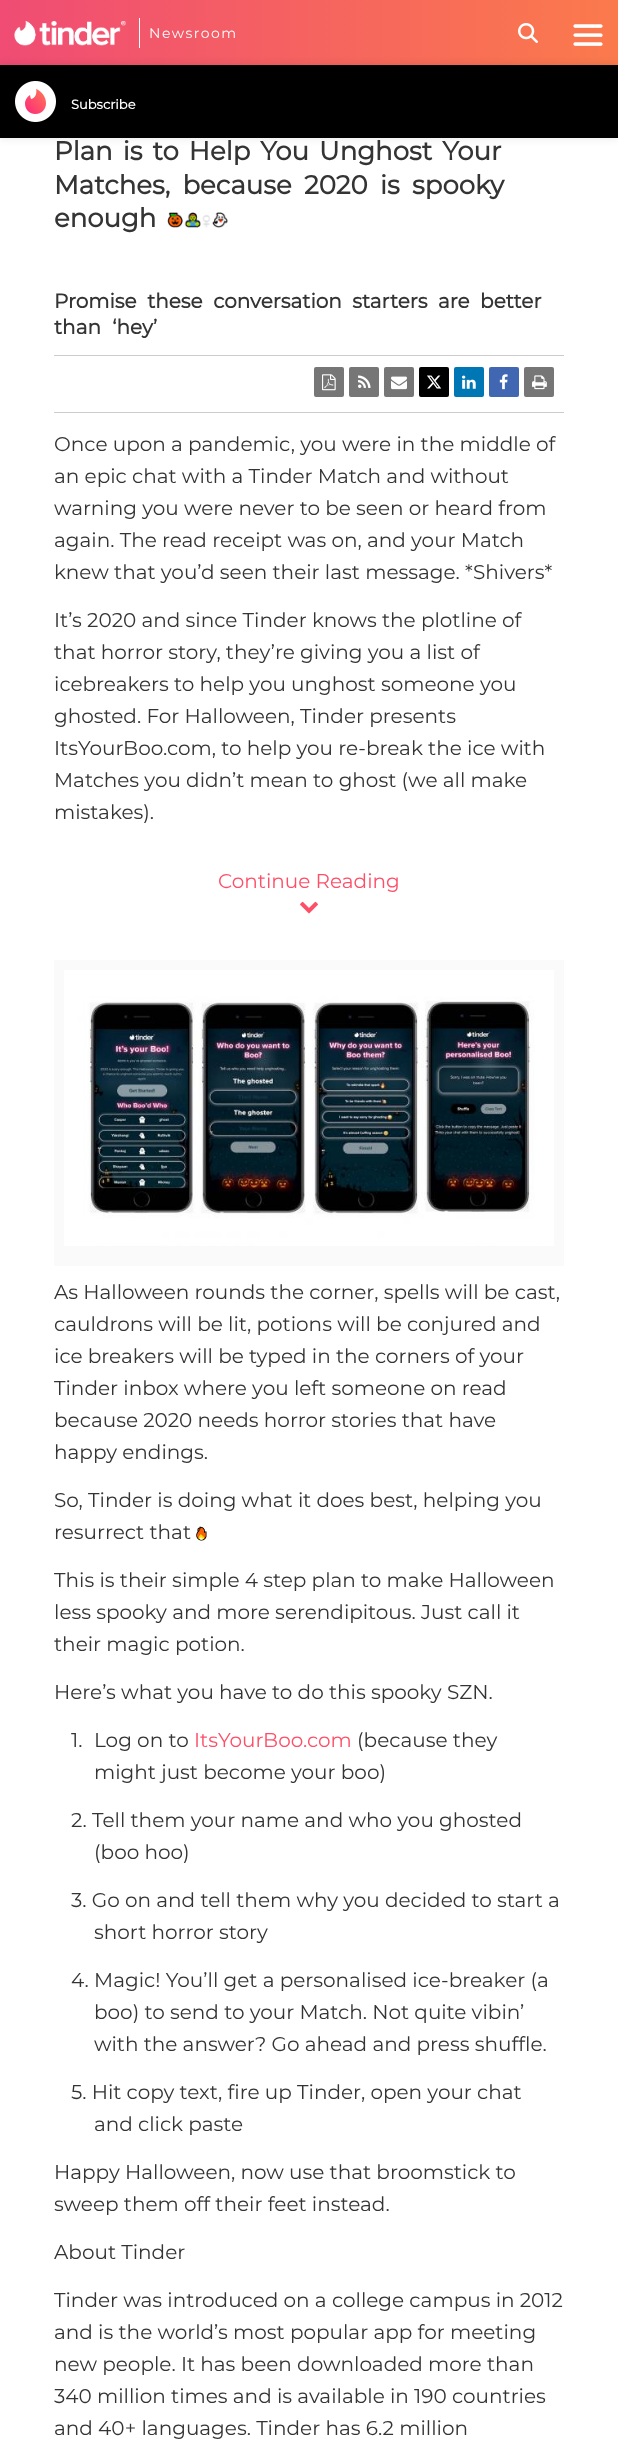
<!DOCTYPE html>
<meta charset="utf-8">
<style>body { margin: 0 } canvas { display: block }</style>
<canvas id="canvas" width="618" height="2444"></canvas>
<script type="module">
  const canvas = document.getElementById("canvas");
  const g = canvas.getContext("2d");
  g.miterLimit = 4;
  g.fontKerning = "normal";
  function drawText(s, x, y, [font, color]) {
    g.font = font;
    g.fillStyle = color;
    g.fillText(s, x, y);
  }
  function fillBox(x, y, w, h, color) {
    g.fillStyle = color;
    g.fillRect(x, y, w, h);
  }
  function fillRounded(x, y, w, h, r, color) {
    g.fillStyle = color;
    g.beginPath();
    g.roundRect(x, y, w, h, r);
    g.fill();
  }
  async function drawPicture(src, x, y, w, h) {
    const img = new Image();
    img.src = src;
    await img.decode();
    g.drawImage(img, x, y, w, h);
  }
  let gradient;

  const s1 = ["14px Montserrat", "#FFFFFF"];
  const s2 = ["bold 13px Montserrat", "#FFFFFF"];
  const s3 = ["bold 26px Montserrat", "#343434"];
  const s4 = ["bold 20px Montserrat", "#343434"];
  const s5 = ["20px Montserrat", "#343434"];
  const s6 = ["20px Montserrat", "#FD5068"];

  fillBox(0, 0, 618, 2444, "#FFFFFF");
  gradient = g.createLinearGradient(0, 69, 618, 69);
  gradient.addColorStop(0, "#F04C74");
  gradient.addColorStop(1, "#FB7A4C");
  g.fillStyle = gradient;
  g.fillRect(0, 0, 618, 65);
  await drawPicture("pic1.png", 14, 21, 112, 25);
  fillBox(139, 18, 1, 30, "#FFFFFF");
  g.letterSpacing = "1.5px";
  drawText("Newsroom", 149, 38, s1);
  await drawPicture("pic2.png", 518, 23, 20, 20);
  await drawPicture("pic3.png", 573, 24, 30, 22);
  g.fillStyle = "rgba(0, 0, 0, 0.1)";
  g.filter = "blur(4.5px)";
  g.beginPath();
  g.rect(0, 65, 618, 73);
  g.fill();
  g.filter = "none";
  fillBox(0, 65, 618, 73, "#000000");
  await drawPicture("pic4.png", 15, 81, 41, 41);
  g.letterSpacing = "0px";
  drawText("Subscribe", 71, 109, s2);
  g.wordSpacing = "3.25px";
  drawText("Plan is to Help You Unghost Your", 54, 160, s3);
  g.wordSpacing = "5.5px";
  drawText("Matches, because 2020 is spooky", 54, 194, s3);
  g.wordSpacing = "0px";
  drawText("enough", 54, 227, s3);
  await drawPicture("pic5.png", 167, 212, 61, 16);
  g.wordSpacing = "5.25px";
  drawText("Promise these conversation starters are better", 54, 308, s4);
  g.wordSpacing = "6px";
  drawText("than ‘hey’", 54, 334, s4);
  fillBox(54, 355, 510, 1, "#CCCCCC");
  fillBox(54, 412, 510, 1, "#CCCCCC");
  fillRounded(314, 367, 30, 30, 2, "#767676");
  await drawPicture("pic6.png", 322, 374, 14, 17);
  fillRounded(349, 367, 30, 30, 2, "#767676");
  await drawPicture("pic7.png", 358, 375, 13, 13);
  fillRounded(384, 367, 30, 30, 2, "#767676");
  await drawPicture("pic8.png", 391, 376, 16, 14);
  fillRounded(419, 367, 30, 30, 2, "#000000");
  await drawPicture("pic9.png", 427, 375, 15, 14);
  fillRounded(454, 367, 30, 30, 2, "#0077B5");
  await drawPicture("pic10.png", 462, 375, 14, 14);
  fillRounded(489, 367, 30, 30, 2, "#4267B2");
  await drawPicture("pic11.png", 499, 374, 9, 16);
  fillRounded(524, 367, 30, 30, 2, "#767676");
  await drawPicture("pic12.png", 532, 375, 15, 15);
  g.wordSpacing = "0px";
  drawText("Once upon a pandemic, you were in the middle of", 54, 451, s5);
  drawText("an epic chat with a Tinder Match and without", 54, 483, s5);
  drawText("warning you were never to be seen or heard from", 54, 515, s5);
  drawText("again. The read receipt was on, and your Match", 54, 547, s5);
  drawText("knew that you’d seen their last message. *Shivers*", 54, 579, s5);
  drawText("It’s 2020 and since Tinder knows the plotline of", 54, 627, s5);
  drawText("that horror story, they’re giving you a list of", 54, 659, s5);
  drawText("icebreakers to help you unghost someone you", 54, 691, s5);
  drawText("ghosted. For Halloween, Tinder presents", 54, 723, s5);
  drawText("ItsYourBoo.com, to help you re-break the ice with", 54, 755, s5);
  drawText("Matches you didn’t mean to ghost (we all make", 54, 787, s5);
  drawText("mistakes).", 54, 819, s5);
  drawText("Continue Reading", 218, 888, s6);
  await drawPicture("pic13.png", 300, 901, 18, 13);
  fillBox(54, 960, 510, 306, "#FAFAFA");
  await drawPicture("pic14.png", 64, 970, 490, 276);
  drawText("As Halloween rounds the corner, spells will be cast,", 54, 1299, s5);
  drawText("cauldrons will be lit, potions will be conjured and", 54, 1331, s5);
  drawText("ice breakers will be typed in the corners of your", 54, 1363, s5);
  drawText("Tinder inbox where you left someone on read", 54, 1395, s5);
  drawText("because 2020 needs horror stories that have", 54, 1427, s5);
  drawText("happy endings.", 54, 1459, s5);
  drawText("So, Tinder is doing what it does best, helping you", 54, 1507, s5);
  drawText("resurrect that", 54, 1539, s5);
  await drawPicture("pic15.png", 196, 1526, 11, 15);
  drawText("This is their simple 4 step plan to make Halloween", 54, 1587, s5);
  drawText("less spooky and more serendipitous. Just call it", 54, 1619, s5);
  drawText("their magic potion.", 54, 1651, s5);
  drawText("Here’s what you have to do this spooky SZN.", 54, 1699, s5);
  drawText("ItsYourBoo.com", 194, 1747, s6);
  drawText("(because they", 357, 1747, s5);
  drawText("might just become your boo)", 94, 1779, s5);
  drawText("1.", 71, 1747, s5);
  drawText("Log on to", 94, 1747, s5);
  drawText("2. Tell them your name and who you ghosted", 71, 1827, s5);
  drawText("(boo hoo)", 94, 1859, s5);
  drawText("3. Go on and tell them why you decided to start a", 71, 1907, s5);
  drawText("short horror story", 94, 1939, s5);
  drawText("4. Magic! You’ll get a personalised ice-breaker (a", 71, 1987, s5);
  drawText("boo) to send to your Match. Not quite vibin’", 94, 2019, s5);
  drawText("with the answer? Go ahead and press shuffle.", 94, 2051, s5);
  drawText("5. Hit copy text, fire up Tinder, open your chat", 71, 2099, s5);
  drawText("and click paste", 94, 2131, s5);
  drawText("Happy Halloween, now use that broomstick to", 54, 2179, s5);
  drawText("sweep them off their feet instead.", 54, 2211, s5);
  drawText("About Tinder", 54, 2259, s5);
  drawText("Tinder was introduced on a college campus in 2012", 54, 2307, s5);
  drawText("and is the world’s most popular app for meeting", 54, 2339, s5);
  drawText("new people. It has been downloaded more than", 54, 2371, s5);
  drawText("340 million times and is available in 190 countries", 54, 2403, s5);
  drawText("and 40+ languages. Tinder has 6.2 million", 54, 2435, s5);
</script>
